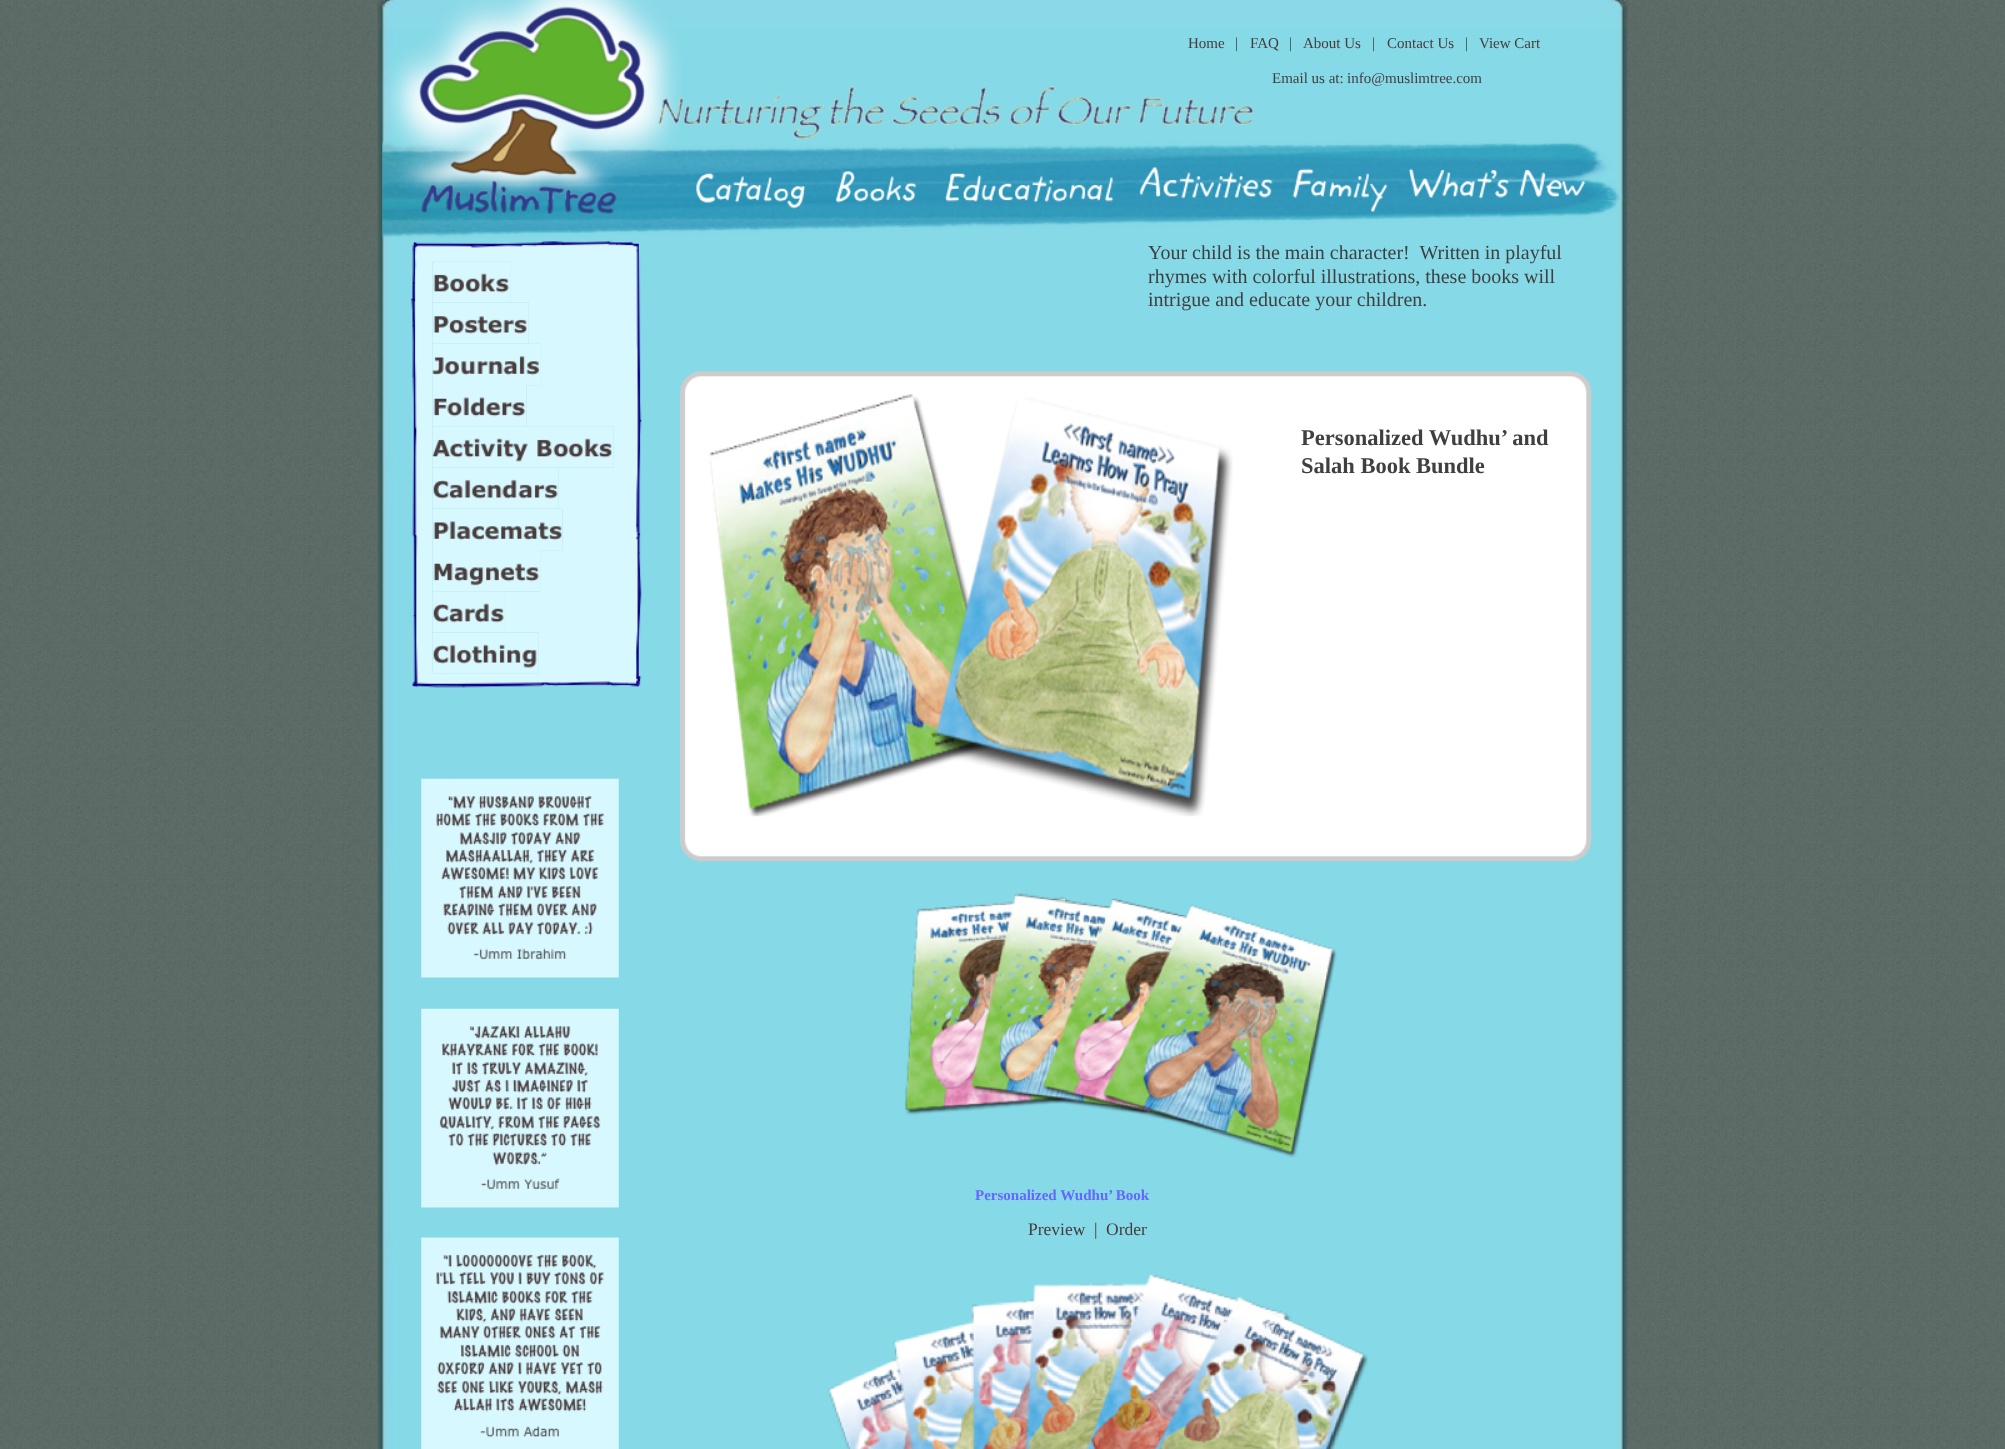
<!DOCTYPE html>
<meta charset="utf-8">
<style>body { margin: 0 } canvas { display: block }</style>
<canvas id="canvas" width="2005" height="1449"></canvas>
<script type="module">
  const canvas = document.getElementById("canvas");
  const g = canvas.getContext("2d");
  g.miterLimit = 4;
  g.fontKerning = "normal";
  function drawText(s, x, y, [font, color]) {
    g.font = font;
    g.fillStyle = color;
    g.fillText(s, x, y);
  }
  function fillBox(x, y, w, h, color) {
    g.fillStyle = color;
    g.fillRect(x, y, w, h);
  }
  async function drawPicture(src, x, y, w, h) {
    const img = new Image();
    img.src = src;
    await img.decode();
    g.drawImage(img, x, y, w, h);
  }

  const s1 = ["15px Liberation Serif", "#463C3C"];
  const s2 = ["15px Liberation Serif", "#3F3F3F"];
  const s3 = ["20px Liberation Serif", "#3F3F3F"];
  const s4 = ["bold 22.5px Liberation Serif", "#3F3F3F"];
  const s5 = ["bold 15px Liberation Serif", "#6666FF"];
  const s6 = ["17.5px Liberation Serif", "#463C3C"];
  const s7 = ["17.5px Liberation Serif", "#3F3F3F"];

  fillBox(0, 0, 2005, 1449, "#FFFFFF");
  await drawPicture("pic1.png", 0, 0, 2005, 1449);
  await drawPicture("pic2.png", 377, 0, 1251, 1449);
  await drawPicture("pic3.png", 377, 0, 1251, 29);
  await drawPicture("pic6.png", 382, 140, 1242, 98);
  await drawPicture("pic4.png", 379, 0, 303, 214);
  drawText("Home", 1188, 48, s1);
  drawText("|", 1235, 48, s2);
  drawText("FAQ", 1250, 48, s1);
  drawText("|", 1289, 48, s2);
  drawText("About Us", 1303, 48, s1);
  drawText("|", 1372, 48, s2);
  drawText("Contact Us", 1387, 48, s1);
  drawText("|", 1465, 48, s2);
  drawText("View Cart", 1479, 48, s1);
  drawText("Email us at:", 1272, 83, s2);
  drawText("info@muslimtree.com", 1347, 83, s1);
  await drawPicture("pic5.png", 657, 86, 597, 53);
  await drawPicture("pic7.png", 696, 172, 110, 37);
  await drawPicture("pic8.png", 835, 171, 82, 32);
  await drawPicture("pic9.png", 945, 173, 168, 30);
  await drawPicture("pic10.png", 1139, 167, 134, 32);
  await drawPicture("pic11.png", 1292, 168, 96, 45);
  await drawPicture("pic12.png", 1408, 168, 178, 31);
  await drawPicture("pic14.png", 432, 261, 78, 42);
  await drawPicture("pic15.png", 432, 302, 97, 42);
  await drawPicture("pic16.png", 432, 343, 108, 42);
  await drawPicture("pic17.png", 432, 385, 95, 42);
  await drawPicture("pic18.png", 432, 426, 182, 42);
  await drawPicture("pic19.png", 432, 467, 127, 42);
  await drawPicture("pic20.png", 432, 508, 131, 42);
  await drawPicture("pic21.png", 432, 550, 108, 42);
  await drawPicture("pic22.png", 432, 591, 73, 42);
  await drawPicture("pic23.png", 432, 632, 107, 42);
  await drawPicture("pic13.png", 411, 241, 231, 447);
  drawText("Your child is the main character!  Written in playful", 1148, 259, s3);
  drawText("rhymes with colorful illustrations, these books will", 1148, 283, s3);
  drawText("intrigue and educate your children.", 1148, 306, s3);
  await drawPicture("pic24.png", 680, 371, 912, 491);
  await drawPicture("pic25.png", 709, 394, 524, 423);
  drawText("Personalized Wudhu’ and", 1301, 445, s4);
  drawText("Salah Book Bundle", 1301, 473, s4);
  await drawPicture("pic26.png", 421, 778, 198, 200);
  await drawPicture("pic27.png", 904, 893, 433, 265);
  await drawPicture("pic28.png", 421, 1008, 198, 200);
  drawText("Personalized Wudhu’ Book", 975, 1200, s5);
  drawText("Preview", 1028, 1235, s6);
  drawText("|", 1094, 1235, s7);
  drawText("Order", 1106, 1235, s6);
  await drawPicture("pic29.png", 421, 1237, 198, 212);
  await drawPicture("pic30.png", 827, 1273, 541, 176);
</script>
